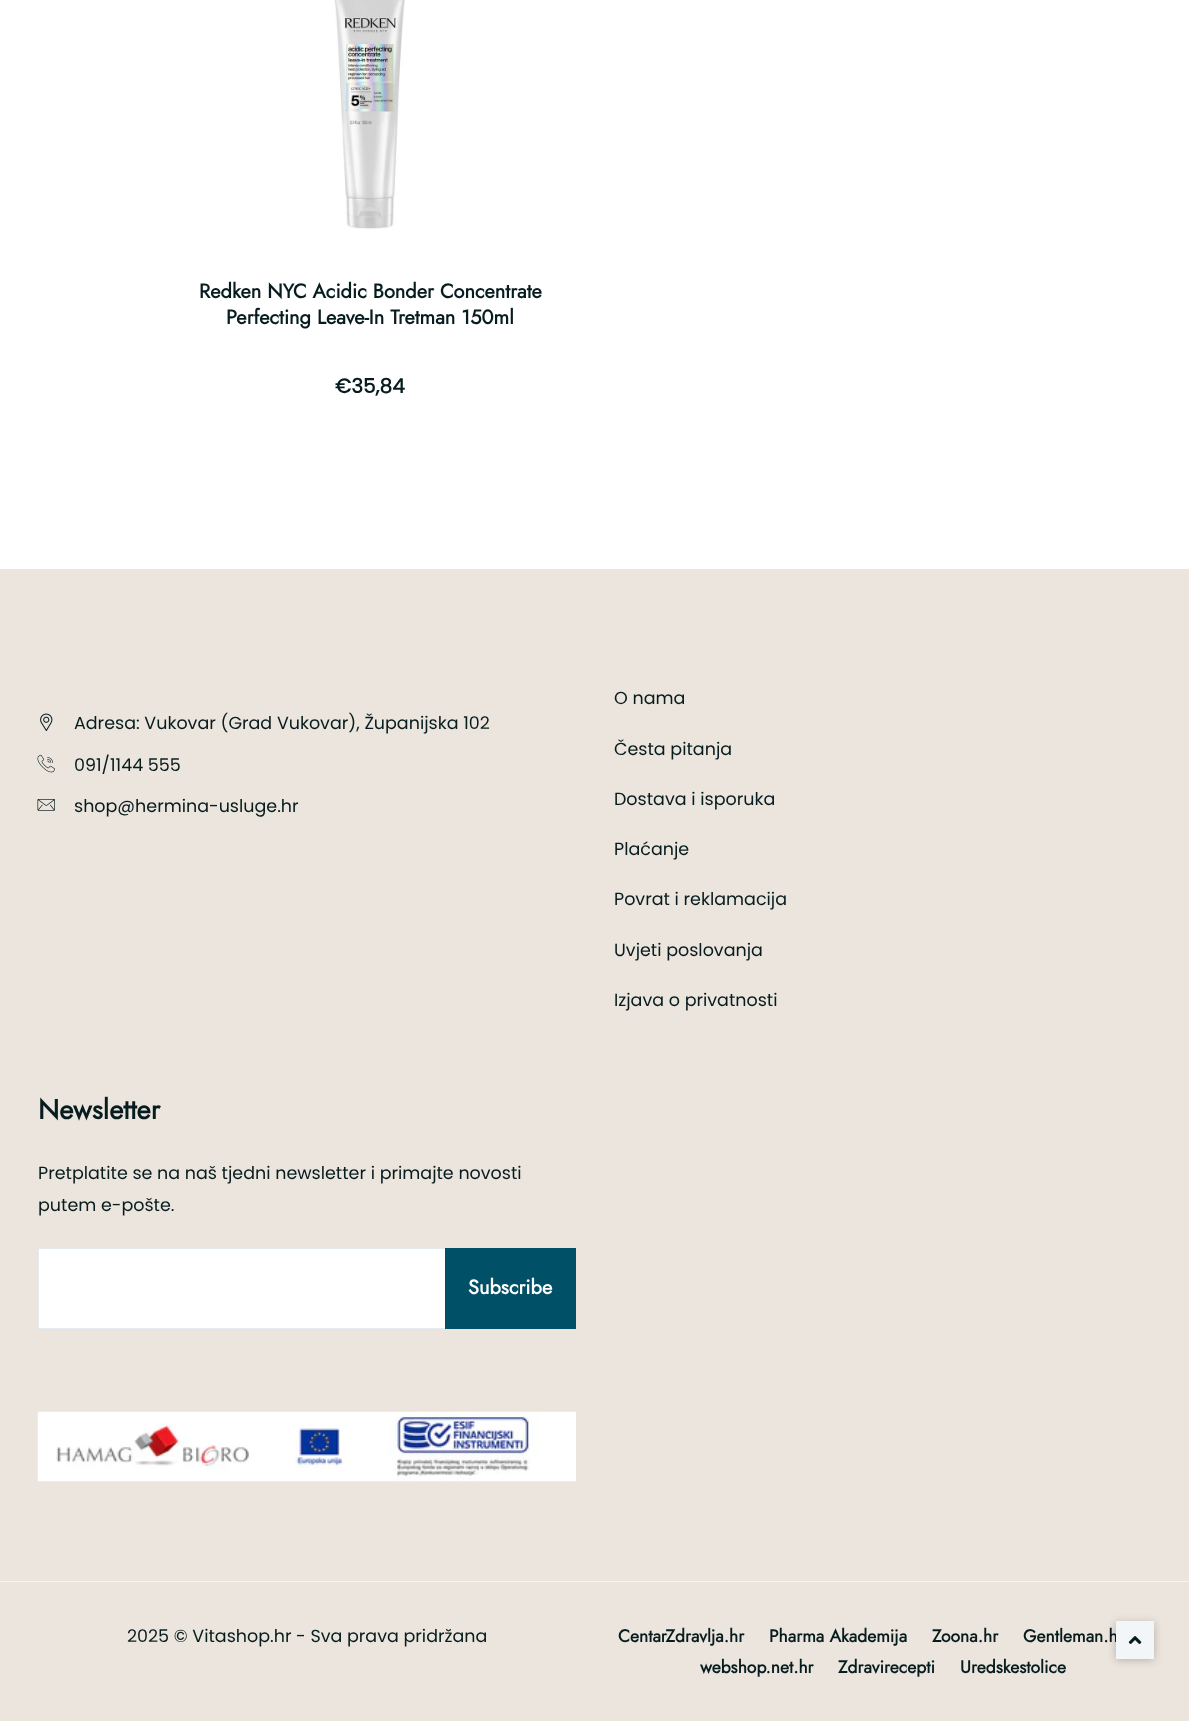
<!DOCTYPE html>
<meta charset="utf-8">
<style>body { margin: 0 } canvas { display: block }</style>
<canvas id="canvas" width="1189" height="1721"></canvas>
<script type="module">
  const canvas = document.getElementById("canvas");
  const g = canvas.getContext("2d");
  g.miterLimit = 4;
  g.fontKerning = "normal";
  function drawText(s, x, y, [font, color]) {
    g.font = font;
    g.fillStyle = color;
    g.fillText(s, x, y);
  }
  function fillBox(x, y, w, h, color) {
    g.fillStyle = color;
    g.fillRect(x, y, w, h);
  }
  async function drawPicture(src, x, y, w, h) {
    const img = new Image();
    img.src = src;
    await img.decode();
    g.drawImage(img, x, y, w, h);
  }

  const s1 = ["bold 20px Jost", "#071C1F"];
  const s2 = ["bold 20px Poppins", "#071C1F"];
  const s3 = ["17.5px Poppins", "#071C1F"];
  const s4 = ["bold 27.5px Jost", "#071C1F"];
  const s5 = ["bold 20px Jost", "#FFFFFF"];
  const s6 = ["bold 17.5px Jost", "#071C1F"];

  fillBox(0, 0, 1189, 1721, "#FFFFFF");
  await drawPicture("pic1.png", 334, 0, 71, 229);
  drawText("Redken NYC Acidic Bonder Concentrate", 199, 298, s1);
  drawText("Perfecting Leave-In Tretman 150ml", 226, 324, s1);
  drawText("€35,84", 335, 393, s2);
  fillBox(0, 569, 1189, 1012, "#ECE5DD");
  await drawPicture("pic2.png", 40, 713, 13, 19);
  drawText("Adresa: Vukovar (Grad Vukovar), Županijska 102", 74, 729, s3);
  await drawPicture("pic3.png", 37, 754, 18, 19);
  drawText("091/1144 555", 74, 771, s3);
  await drawPicture("pic4.png", 37, 799, 18, 12);
  drawText("shop@hermina-usluge.hr", 74, 812, s3);
  drawText("O nama", 614, 704, s3);
  drawText("Česta pitanja", 614, 755, s3);
  drawText("Dostava i isporuka", 614, 805, s3);
  drawText("Plaćanje", 614, 855, s3);
  drawText("Povrat i reklamacija", 614, 905, s3);
  drawText("Uvjeti poslovanja", 614, 956, s3);
  drawText("Izjava o privatnosti", 614, 1006, s3);
  drawText("Newsletter", 38, 1119, s4);
  drawText("Pretplatite se na naš tjedni newsletter i primajte novosti", 38, 1179, s3);
  drawText("putem e-pošte.", 38, 1211, s3);
  fillBox(39, 1249, 406, 79, "#FFFFFF");
  g.strokeStyle = "#E4ECF2";
  g.strokeRect(38.5, 1248.5, 537, 80);
  fillBox(445, 1248, 131, 81, "#005167");
  drawText("Subscribe", 468, 1294, s5);
  await drawPicture("pic5.png", 37, 1411, 539, 71);
  fillBox(0, 1582, 1189, 139, "#ECE5DD");
  fillBox(0, 1581, 1189, 1, "#F2F6F7");
  drawText("2025 © Vitashop.hr - Sva prava pridržana", 127, 1642, s3);
  drawText("CentarZdravlja.hr", 618, 1642, s6);
  drawText("Pharma Akademija", 769, 1642, s6);
  drawText("Zoona.hr", 932, 1642, s6);
  drawText("Gentleman.h", 1023, 1642, s6);
  drawText("webshop.net.hr", 700, 1673, s6);
  drawText("Zdravirecepti", 838, 1673, s6);
  drawText("Uredskestolice", 960, 1673, s6);
  g.fillStyle = "rgba(32, 33, 36, 0.28)";
  g.filter = "blur(4px)";
  g.beginPath();
  g.rect(1116, 1623, 38, 37);
  g.fill();
  g.filter = "none";
  fillBox(1116, 1621, 38, 38, "#F2F6F7");
  await drawPicture("pic6.png", 1128, 1636, 14, 8);
</script>
